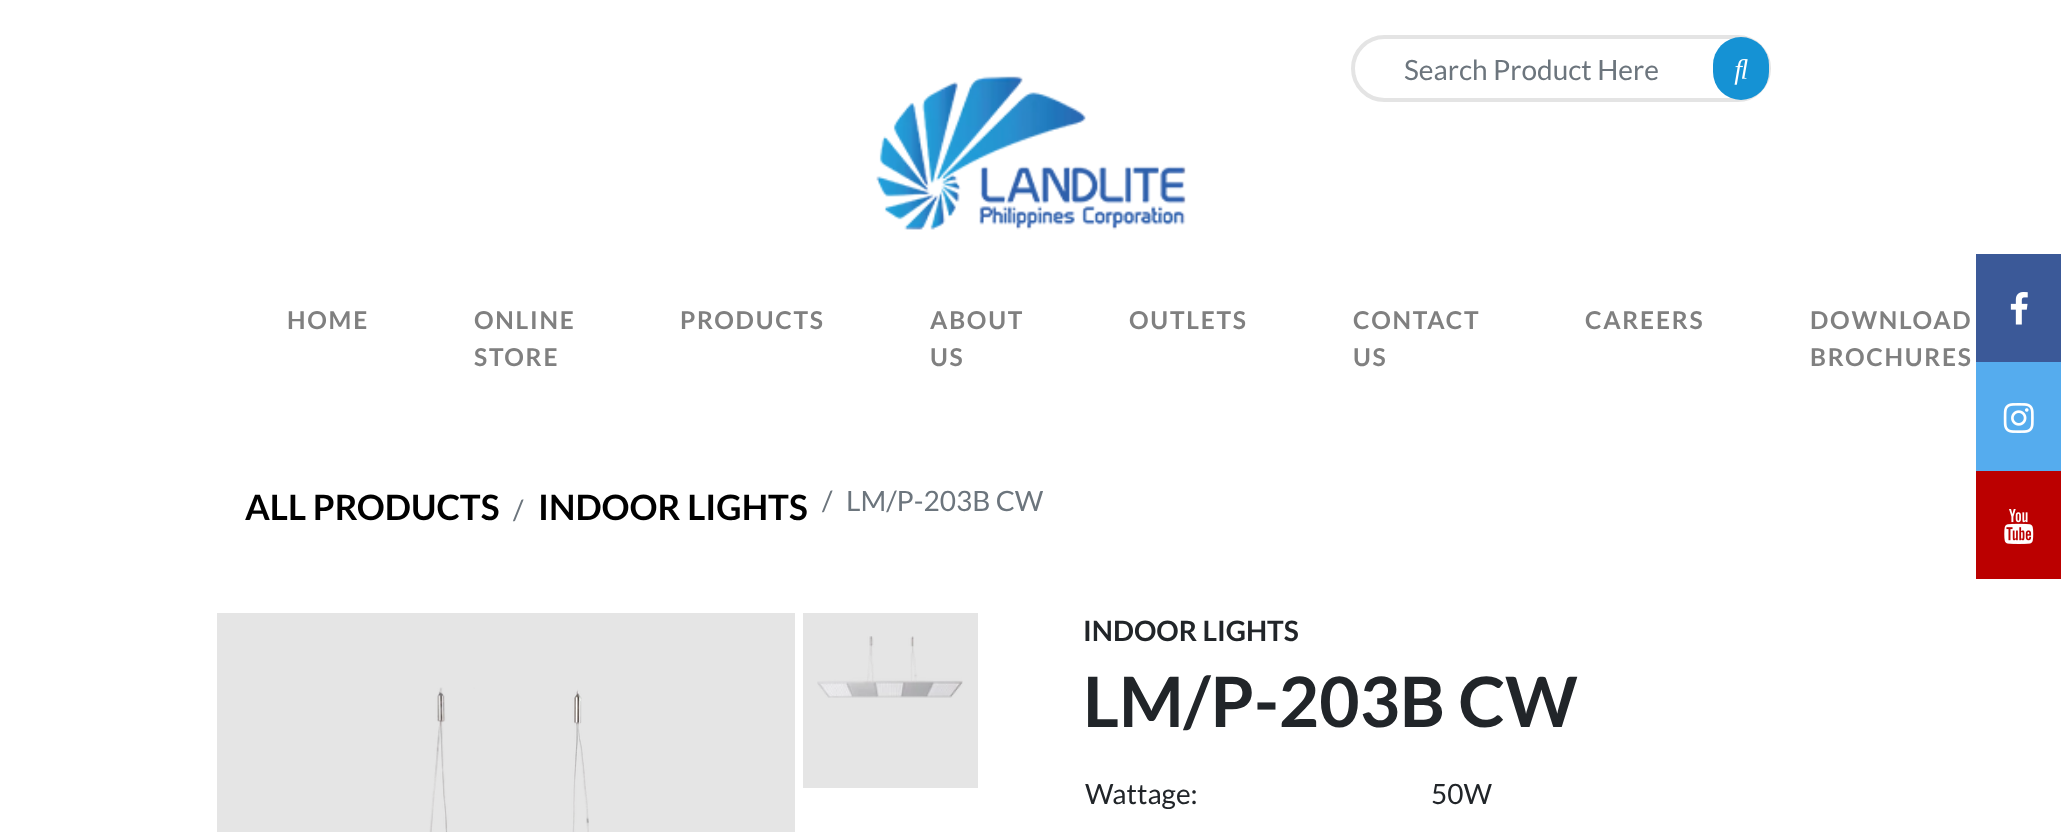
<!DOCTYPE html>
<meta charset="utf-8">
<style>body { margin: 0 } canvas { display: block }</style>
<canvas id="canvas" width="2061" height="832"></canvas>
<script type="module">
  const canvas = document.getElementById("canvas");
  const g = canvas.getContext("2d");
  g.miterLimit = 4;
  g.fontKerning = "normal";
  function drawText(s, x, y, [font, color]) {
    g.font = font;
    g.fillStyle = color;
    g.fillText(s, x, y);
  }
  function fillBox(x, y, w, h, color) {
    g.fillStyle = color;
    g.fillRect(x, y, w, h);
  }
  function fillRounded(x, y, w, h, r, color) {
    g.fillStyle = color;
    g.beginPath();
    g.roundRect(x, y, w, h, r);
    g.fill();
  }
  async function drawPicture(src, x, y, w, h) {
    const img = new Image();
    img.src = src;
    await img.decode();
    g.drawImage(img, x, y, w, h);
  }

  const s1 = ["28px Lato", "#6C757D"];
  const s2 = ["bold 24.5px Lato", "#808080"];
  const s3 = ["bold 35px Lato", "#000000"];
  const s4 = ["bold 28px Lato", "#212529"];
  const s5 = ["bold 69.5px Lato", "#212529"];
  const s6 = ["28px Lato", "#212529"];

  fillBox(0, 0, 2061, 832, "#FFFFFF");
  g.beginPath();
  g.roundRect(1353, 37, 416, 63, 31.5);
  g.strokeStyle = "#E4E4E4";
  g.lineWidth = 4;
  g.stroke();
  drawText("Search Product Here", 1404, 80, s1);
  fillRounded(1713, 37, 56, 63, 28, "#1592D4");
  await drawPicture("pic1.png", 1734, 59, 14, 26);
  await drawPicture("pic2.png", 876, 76, 310, 154);
  g.letterSpacing = "1.75px";
  drawText("HOME", 287, 329, s2);
  drawText("ONLINE", 474, 329, s2);
  drawText("STORE", 474, 366, s2);
  drawText("PRODUCTS", 680, 329, s2);
  drawText("ABOUT", 930, 329, s2);
  drawText("US", 930, 366, s2);
  drawText("OUTLETS", 1129, 329, s2);
  drawText("CONTACT", 1353, 329, s2);
  drawText("US", 1353, 366, s2);
  drawText("CAREERS", 1585, 329, s2);
  drawText("DOWNLOAD", 1810, 329, s2);
  drawText("BROCHURES", 1810, 366, s2);
  g.letterSpacing = "0px";
  drawText("ALL PRODUCTS", 245, 520, s3);
  drawText("/", 513, 520, s1);
  drawText("INDOOR LIGHTS", 538, 520, s3);
  drawText("/", 822, 511, s1);
  drawText("LM/P-203B CW", 846, 511, s1);
  fillBox(217, 613, 578, 219, "#E5E5E5");
  await drawPicture("pic3.png", 429, 687, 160, 145);
  fillBox(803, 613, 175, 175, "#E5E5E5");
  await drawPicture("pic4.png", 817, 636, 146, 62);
  drawText("INDOOR LIGHTS", 1083, 641, s4);
  drawText("LM/P-203B CW", 1083, 727, s5);
  drawText("Wattage:", 1085, 804, s6);
  drawText("50W", 1431, 804, s6);
  fillBox(1976, 254, 85, 108, "#3B5998");
  await drawPicture("pic5.png", 2010, 292, 18, 33);
  fillBox(1976, 362, 85, 109, "#55ACEE");
  await drawPicture("pic6.png", 2003, 403, 31, 30);
  fillBox(1976, 471, 85, 108, "#BB0000");
  await drawPicture("pic7.png", 2004, 509, 30, 35);
</script>
